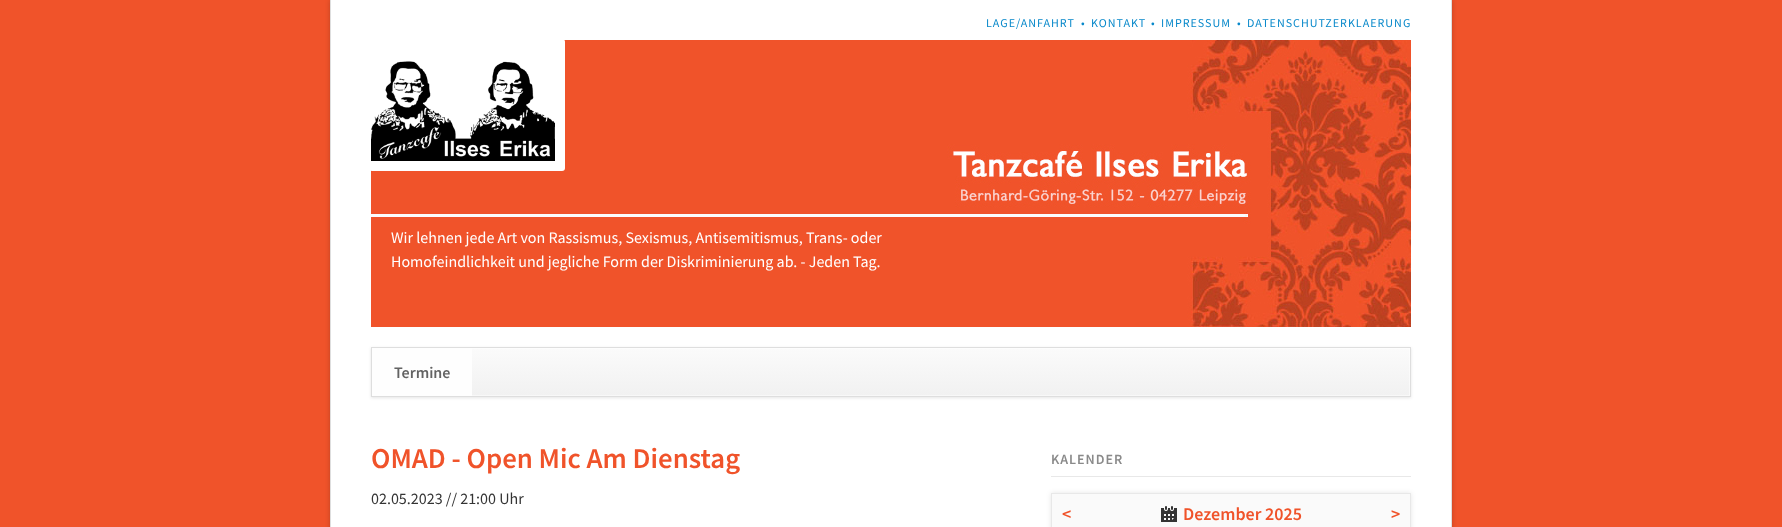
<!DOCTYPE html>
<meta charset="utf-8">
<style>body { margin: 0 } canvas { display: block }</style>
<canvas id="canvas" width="1782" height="527"></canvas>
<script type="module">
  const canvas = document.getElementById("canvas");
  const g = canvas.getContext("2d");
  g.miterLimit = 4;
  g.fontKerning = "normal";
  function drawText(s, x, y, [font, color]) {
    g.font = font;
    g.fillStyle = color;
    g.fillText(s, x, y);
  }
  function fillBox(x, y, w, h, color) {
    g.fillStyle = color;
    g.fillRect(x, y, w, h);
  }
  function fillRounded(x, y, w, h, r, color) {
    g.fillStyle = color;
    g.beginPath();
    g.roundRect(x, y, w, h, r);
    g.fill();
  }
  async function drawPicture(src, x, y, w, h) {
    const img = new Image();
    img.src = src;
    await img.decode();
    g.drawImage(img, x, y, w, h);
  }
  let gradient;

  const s1 = ["12px Source Sans Pro", "#0788CA"];
  const s2 = ["600 16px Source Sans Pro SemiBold", "#636363"];
  const s3 = ["16px Source Sans Pro", "#FFFFFF"];
  const s4 = ["600 28.75px Source Sans Pro SemiBold", "#F0532A"];
  const s5 = ["16px Source Sans Pro", "#343434"];
  const s6 = ["600 14px Source Sans Pro SemiBold", "#8A8A8A"];
  const s7 = ["600 18px Source Sans Pro SemiBold", "#F0532A"];

  fillBox(0, 0, 1782, 527, "#F0532A");
  g.fillStyle = "rgba(0, 0, 0, 0.2)";
  g.filter = "blur(2.5px)";
  g.beginPath();
  g.rect(330, 0, 1122, 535);
  g.fill();
  g.filter = "none";
  fillBox(331, 0, 1120, 527, "#FFFFFF");
  fillBox(1451, 0, 1, 527, "#DEDEDE");
  fillBox(330, 0, 1, 527, "#DEDEDE");
  g.letterSpacing = "1px";
  drawText("LAGE/ANFAHRT", 986, 27, s1);
  drawText("•", 1081, 27, s1);
  drawText("KONTAKT", 1091, 27, s1);
  drawText("•", 1151, 27, s1);
  drawText("IMPRESSUM", 1161, 27, s1);
  drawText("•", 1237, 27, s1);
  drawText("DATENSCHUTZERKLAERUNG", 1247, 27, s1);
  await drawPicture("pic2.png", 371, 40, 1040, 287);
  fillRounded(369, 39, 196, 132, 3, "#FFFFFF");
  await drawPicture("pic1.png", 371, 61, 184, 100);
  g.fillStyle = "rgba(0, 0, 0, 0.1)";
  g.filter = "blur(1.5px)";
  g.beginPath();
  g.rect(371, 348, 1040, 50);
  g.fill();
  g.filter = "none";
  gradient = g.createLinearGradient(891, 348, 891, 396);
  gradient.addColorStop(0, "#FBFBFB");
  gradient.addColorStop(1, "#F1F1F1");
  g.fillStyle = gradient;
  g.fillRect(472, 348, 938, 48);
  g.strokeStyle = "rgba(255, 255, 255, 0.5)";
  g.strokeRect(372.5, 348.5, 1037, 47);
  g.strokeStyle = "#DEDEDE";
  g.strokeRect(371.5, 347.5, 1039, 49);
  fillBox(372, 348, 100, 48, "#FEFEFE");
  g.letterSpacing = "0px";
  drawText("Termine", 394, 378, s2);
  drawText("Wir lehnen jede Art von Rassismus, Sexismus, Antisemitismus, Trans- oder", 391, 243, s3);
  drawText("Homofeindlichkeit und jegliche Form der Diskriminierung ab. - Jeden Tag.", 391, 267, s3);
  drawText("OMAD - Open Mic Am Dienstag", 371, 468, s4);
  drawText("02.05.2023 // 21:00 Uhr", 371, 504, s5);
  fillBox(1051, 476, 360, 1, "#E8E8E8");
  g.letterSpacing = "1px";
  drawText("KALENDER", 1051, 464, s6);
  g.fillStyle = "rgba(0, 0, 0, 0.1)";
  g.filter = "blur(2.5px)";
  g.beginPath();
  g.rect(1051, 493, 360, 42);
  g.fill();
  g.filter = "none";
  fillBox(1052, 494, 358, 33, "#FAFAFA");
  fillBox(1051, 493, 360, 1, "#E8E8E8");
  fillBox(1051, 493, 1, 34, "#E8E8E8");
  g.letterSpacing = "0px";
  drawText("<", 1062, 520, s7);
  await drawPicture("pic3.png", 1161, 506, 16, 16);
  drawText("Dezember 2025", 1183, 520, s7);
  fillBox(1410, 493, 1, 34, "#E8E8E8");
  drawText(">", 1391, 520, s7);
</script>
